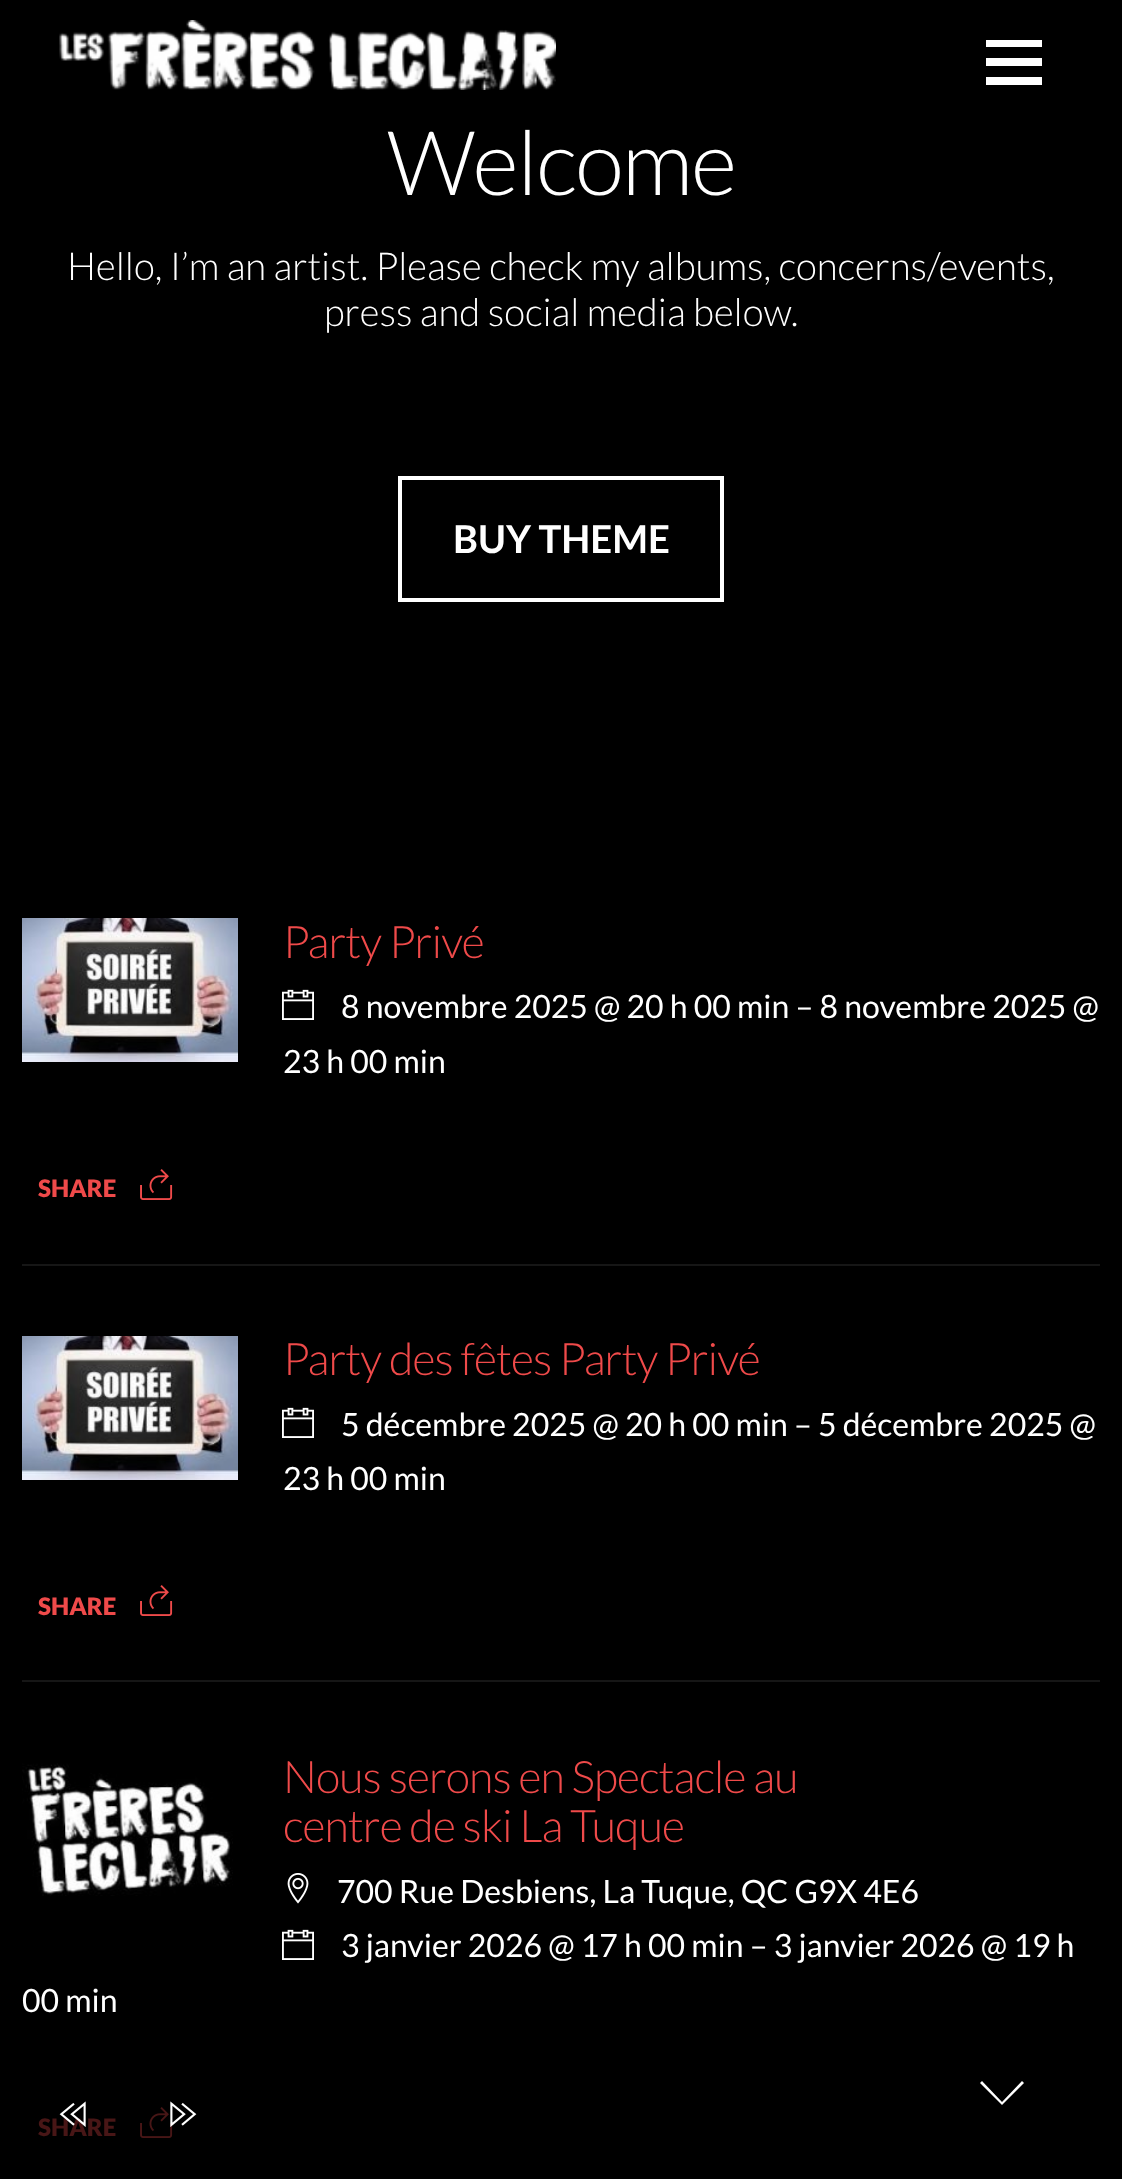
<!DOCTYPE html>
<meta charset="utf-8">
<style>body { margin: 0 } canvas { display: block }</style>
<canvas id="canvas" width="1122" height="2179"></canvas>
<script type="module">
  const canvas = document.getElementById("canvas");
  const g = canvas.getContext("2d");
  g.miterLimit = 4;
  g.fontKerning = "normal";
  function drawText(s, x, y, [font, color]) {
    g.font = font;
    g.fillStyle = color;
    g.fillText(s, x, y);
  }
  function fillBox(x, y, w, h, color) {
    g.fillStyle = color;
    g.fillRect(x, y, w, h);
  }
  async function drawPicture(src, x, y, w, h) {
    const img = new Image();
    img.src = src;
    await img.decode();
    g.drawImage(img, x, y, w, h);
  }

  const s1 = ["300 89.5px Lato", "#FFFFFF"];
  const s2 = ["300 38.4px Lato", "#FFFFFF"];
  const s3 = ["bold 38.4px Lato", "#FFFFFF"];
  const s4 = ["300 44.75px Lato", "#EF4A4A"];
  const s5 = ["32px Lato", "#FFFFFF"];
  const s6 = ["900 24px Lato", "#EF4A4A"];
  const s7 = ["900 24px Lato", "#481616"];

  fillBox(0, 0, 1122, 2179, "#000000");
  await drawPicture("pic1.png", 59, 20, 497, 70);
  g.fillStyle = "#FFFFFF";
  g.beginPath();
  g.moveTo(1042, 40);
  g.lineTo(1042, 47);
  g.lineTo(986, 47);
  g.lineTo(986, 40);
  g.closePath();
  g.moveTo(986, 66);
  g.lineTo(1042, 66);
  g.lineTo(1042, 58);
  g.lineTo(986, 58);
  g.closePath();
  g.moveTo(986, 85);
  g.lineTo(1042, 85);
  g.lineTo(1042, 77);
  g.lineTo(986, 77);
  g.closePath();
  g.fill();
  g.letterSpacing = "-1.75px";
  drawText("Welcome", 387, 195, s1);
  g.letterSpacing = "0px";
  drawText("Hello, I’m an artist. Please check my albums, concerns/events,", 67, 280, s2);
  drawText("press and social media below.", 324, 326, s2);
  g.strokeStyle = "#FFFFFF";
  g.lineWidth = 4;
  g.strokeRect(400, 478, 322, 122);
  drawText("BUY THEME", 453, 553, s3);
  fillBox(22, 1264, 1078, 2, "#161616");
  await drawPicture("pic2.png", 22, 918, 216, 144);
  g.letterSpacing = "-0.9px";
  drawText("Party Privé", 283, 958, s4);
  await drawPicture("pic3.png", 282, 989, 32, 31);
  g.letterSpacing = "0px";
  drawText("8 novembre 2025 @ 20 h 00 min – 8 novembre 2025 @", 341, 1018, s5);
  drawText("23 h 00 min", 283, 1073, s5);
  drawText("SHARE", 38, 1197, s6);
  await drawPicture("pic4.png", 140, 1169, 33, 31);
  fillBox(22, 1680, 1078, 2, "#161616");
  await drawPicture("pic2.png", 22, 1336, 216, 144);
  g.letterSpacing = "-0.9px";
  drawText("Party des fêtes Party Privé", 283, 1375, s4);
  await drawPicture("pic3.png", 282, 1407, 32, 31);
  g.letterSpacing = "0px";
  drawText("5 décembre 2025 @ 20 h 00 min – 5 décembre 2025 @", 341, 1436, s5);
  drawText("23 h 00 min", 283, 1490, s5);
  drawText("SHARE", 38, 1615, s6);
  await drawPicture("pic4.png", 140, 1585, 33, 31);
  g.letterSpacing = "-0.9px";
  drawText("Nous serons en Spectacle au", 283, 1793, s4);
  drawText("centre de ski La Tuque", 283, 1842, s4);
  await drawPicture("pic5.png", 287, 1873, 22, 31);
  g.letterSpacing = "0px";
  drawText("700 Rue Desbiens, La Tuque, QC G9X 4E6", 337, 1903, s5);
  await drawPicture("pic3.png", 282, 1929, 32, 31);
  drawText("3 janvier 2026 @ 17 h 00 min – 3 janvier 2026 @ 19 h", 341, 1957, s5);
  drawText("00 min", 22, 2012, s5);
  drawText("SHARE", 38, 2136, s7);
  await drawPicture("pic6.png", 140, 2107, 33, 31);
  await drawPicture("pic7.png", 22, 1763, 211, 133);
  g.fillStyle = "#FFFFFF";
  g.beginPath();
  g.moveTo(1024, 2083);
  g.lineTo(1002, 2105);
  g.lineTo(980, 2083);
  g.lineTo(982, 2081);
  g.lineTo(1002, 2102);
  g.lineTo(1022, 2081);
  g.closePath();
  g.fill();
  await drawPicture("pic8.png", 59, 2101, 27, 26);
  await drawPicture("pic9.png", 170, 2101, 27, 26);
</script>
